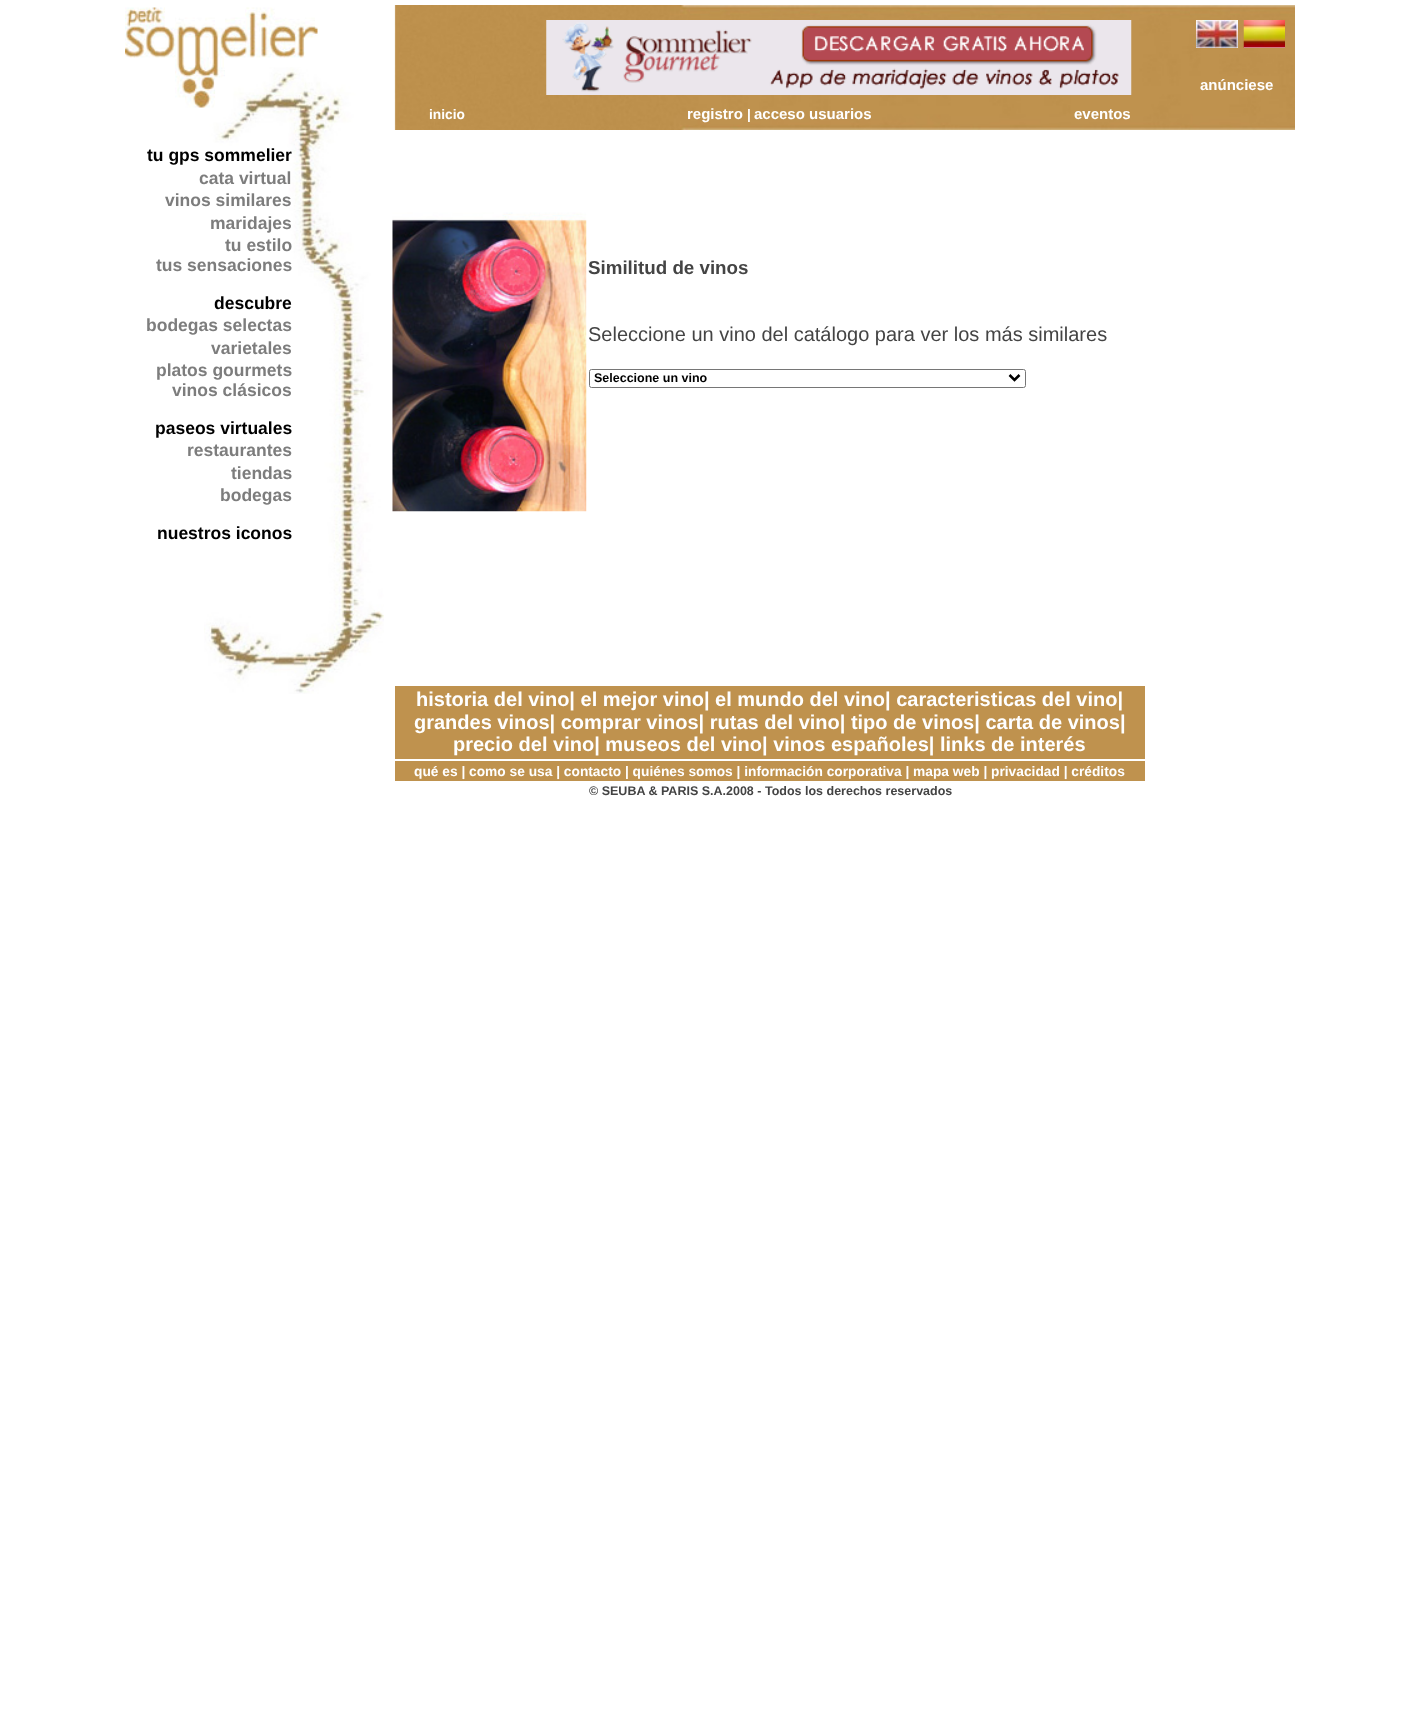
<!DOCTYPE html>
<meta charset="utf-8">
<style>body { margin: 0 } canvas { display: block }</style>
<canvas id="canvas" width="1423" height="1732"></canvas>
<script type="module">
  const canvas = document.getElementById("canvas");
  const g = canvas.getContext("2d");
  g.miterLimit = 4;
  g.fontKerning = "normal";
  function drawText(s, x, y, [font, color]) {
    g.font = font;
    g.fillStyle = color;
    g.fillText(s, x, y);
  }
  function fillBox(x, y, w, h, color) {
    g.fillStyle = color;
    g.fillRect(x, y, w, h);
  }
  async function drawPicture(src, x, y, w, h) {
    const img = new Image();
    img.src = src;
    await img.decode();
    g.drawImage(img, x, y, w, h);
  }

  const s1 = ["bold 17.5px Liberation Sans", "#000000"];
  const s2 = ["bold 17.5px Liberation Sans", "#7D7D7D"];
  const s3 = ["bold 15px Liberation Sans", "#FFFFFF"];
  const s4 = ["bold 13.75px Liberation Sans", "#FFFFFF"];
  const s5 = ["bold 18.75px Liberation Sans", "#444444"];
  const s6 = ["20px Liberation Sans", "#444444"];
  const s7 = ["bold 12.5px Liberation Sans", "#000000"];
  const s8 = ["bold 20px Liberation Sans", "#FFFFFF"];
  const s9 = ["bold 12.5px Liberation Sans", "#444444"];

  fillBox(0, 0, 1423, 1732, "#FFFFFF");
  await drawPicture("pic1.png", 204, 67, 180, 627);
  await drawPicture("pic2.png", 125, 7, 193, 101);
  drawText("tu gps sommelier", 147, 161, s1);
  drawText("cata virtual", 199, 184, s2);
  drawText("vinos similares", 165, 206, s2);
  drawText("maridajes", 210, 229, s2);
  drawText("tu estilo", 225, 251, s2);
  drawText("tus sensaciones", 156, 271, s2);
  drawText("descubre", 214, 309, s1);
  drawText("bodegas selectas", 146, 331, s2);
  drawText("varietales", 211, 354, s2);
  drawText("platos gourmets", 156, 376, s2);
  drawText("vinos clásicos", 172, 396, s2);
  drawText("paseos virtuales", 155, 434, s1);
  drawText("restaurantes", 187, 456, s2);
  drawText("tiendas", 231, 479, s2);
  drawText("bodegas", 220, 501, s2);
  drawText("nuestros iconos", 157, 539, s1);
  await drawPicture("pic3.png", 394, 5, 901, 125);
  await drawPicture("pic4.png", 546, 20, 586, 75);
  fillBox(1196, 20, 42, 28, "#FFFFFF");
  await drawPicture("pic5.png", 1196, 20, 42, 28);
  fillBox(1244, 47, 41, 1, "#FFFFFF");
  await drawPicture("pic6.png", 1243, 20, 42, 28);
  drawText("anúnciese", 1200, 90, s3);
  drawText("inicio", 429, 119, s4);
  drawText("registro", 687, 119, s3);
  drawText("|", 747, 119, s4);
  drawText("acceso usuarios", 754, 119, s3);
  drawText("eventos", 1074, 119, s3);
  await drawPicture("pic7.png", 392, 212, 195, 300);
  drawText("Similitud de vinos", 588, 274, s5);
  drawText("Seleccione un vino del catálogo para ver los más similares", 588, 341, s6);
  g.beginPath();
  g.roundRect(589.5, 369.5, 436, 18, 2);
  g.strokeStyle = "#767676";
  g.stroke();
  g.beginPath();
  g.moveTo(1009.5, 375);
  g.lineTo(1014.5, 380);
  g.lineTo(1019.5, 375);
  g.strokeStyle = "#000000";
  g.lineWidth = 2.5;
  g.stroke();
  drawText("Seleccione un vino", 594, 382, s7);
  fillBox(395, 686, 750, 73, "#BF924E");
  drawText("historia del vino| el mejor vino| el mundo del vino| caracteristicas del vino|", 416, 706, s8);
  drawText("grandes vinos| comprar vinos| rutas del vino| tipo de vinos| carta de vinos|", 414, 729, s8);
  drawText("precio del vino| museos del vino| vinos españoles| links de interés", 453, 751, s8);
  fillBox(395, 761, 750, 20, "#BF924E");
  drawText("qué es | como se usa | contacto | quiénes somos | información corporativa | mapa web | privacidad | créditos", 414, 776, s4);
  drawText("© SEUBA & PARIS S.A.2008 - Todos los derechos reservados", 589, 795, s9);
</script>
